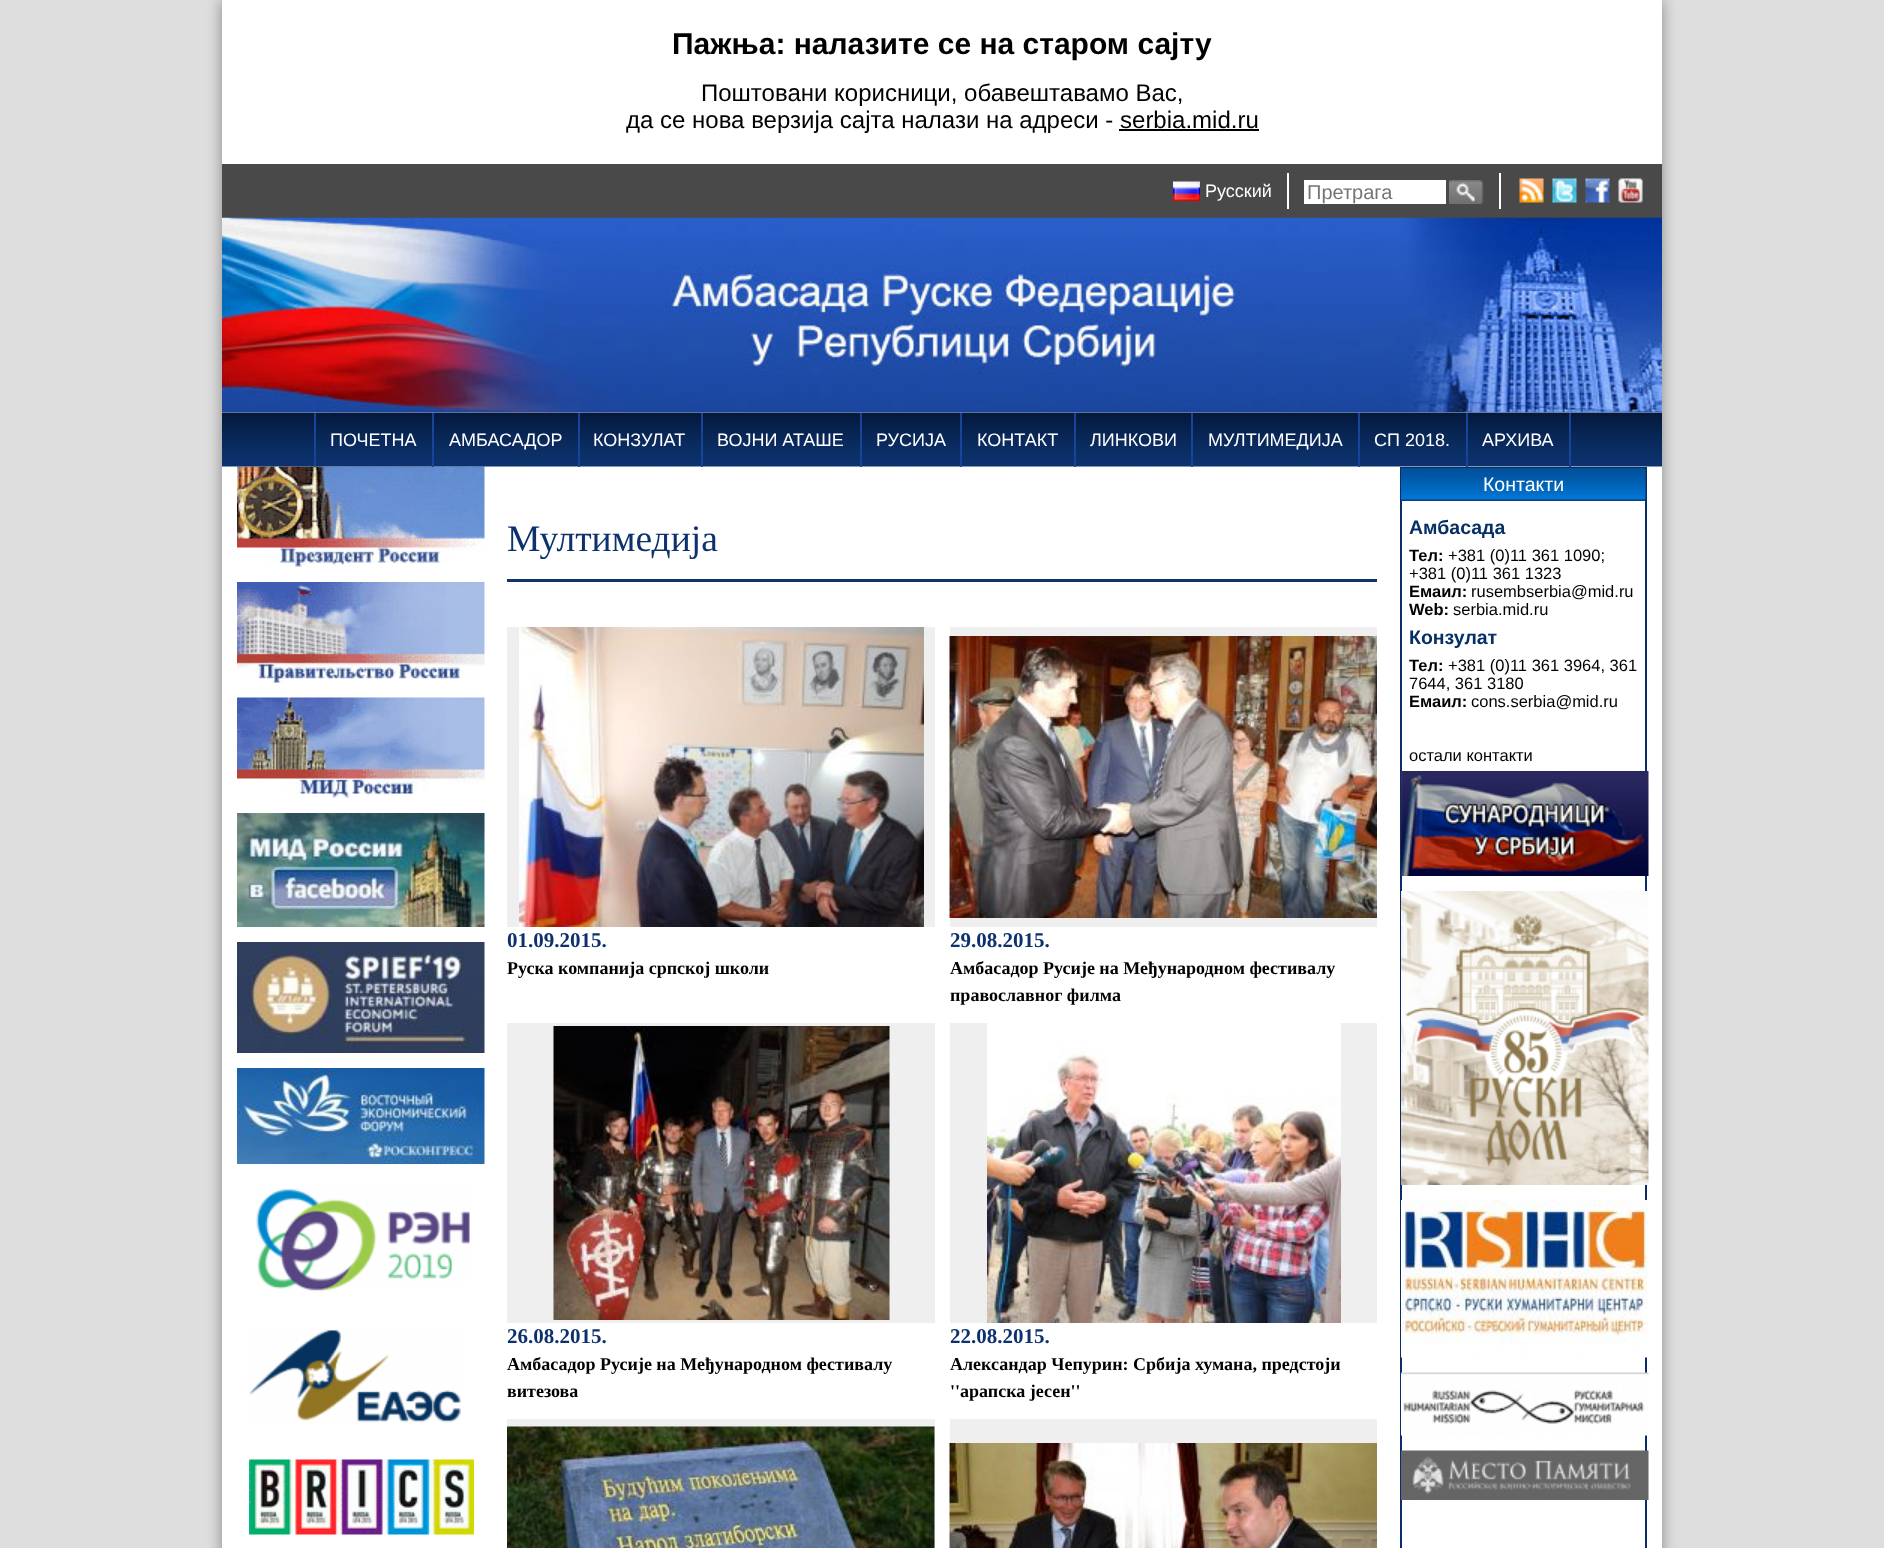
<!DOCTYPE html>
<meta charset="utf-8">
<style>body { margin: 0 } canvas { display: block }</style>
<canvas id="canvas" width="1884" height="1548"></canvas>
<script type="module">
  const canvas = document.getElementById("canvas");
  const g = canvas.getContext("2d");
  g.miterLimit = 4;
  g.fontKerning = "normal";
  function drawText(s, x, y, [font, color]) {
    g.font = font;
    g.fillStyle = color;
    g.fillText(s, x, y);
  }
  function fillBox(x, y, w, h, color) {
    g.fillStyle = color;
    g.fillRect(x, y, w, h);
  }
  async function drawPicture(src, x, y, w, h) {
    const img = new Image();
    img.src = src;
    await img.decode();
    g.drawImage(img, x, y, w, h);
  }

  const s1 = ["bold 30px Liberation Sans", "#000000"];
  const s2 = ["24px Liberation Sans", "#000000"];
  const s3 = ["18px Liberation Sans", "#FFFFFF"];
  const s4 = ["20px Liberation Sans", "#757575"];
  const s5 = ["37.5px Liberation Serif", "#0D316D"];
  const s6 = ["bold 21px Liberation Serif", "#0D316D"];
  const s7 = ["bold 18px Liberation Serif", "#000000"];
  const s8 = ["19.5px Liberation Sans", "#FFFFFF"];
  const s9 = ["bold 19.5px Liberation Sans", "#062F63"];
  const s10 = ["bold 16.5px Liberation Sans", "#000000"];
  const s11 = ["16.5px Liberation Sans", "#000000"];

  fillBox(0, 0, 1884, 1548, "#DEDEDE");
  g.fillStyle = "#888888";
  g.filter = "blur(7.5px)";
  g.beginPath();
  g.rect(222, 0, 1440, 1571);
  g.fill();
  g.filter = "none";
  fillBox(222, 412, 1440, 1136, "#FFFFFF");
  fillBox(222, 0, 1440, 164, "#FFFFFF");
  drawText("Пажња: налазите се на старом сајту", 672, 54, s1);
  drawText("Поштовани корисници, обавештавамо Вас,", 701, 101, s2);
  drawText("да се нова верзија сајта налази на адреси - serbia.mid.ru", 626, 128, s2);
  fillBox(1119, 129, 140, 2, "#000000");
  fillBox(222, 164, 1440, 54, "#494949");
  await drawPicture("pic1.png", 1173, 181, 27, 20);
  drawText("Русский", 1205, 197, s3);
  fillBox(1287, 173, 2, 36, "#FFFFFF");
  fillBox(1304, 180, 142, 24, "#FFFFFF");
  drawText("Претрага", 1307, 199, s4);
  await drawPicture("pic2.png", 1449, 180, 35, 24);
  fillBox(1499, 173, 2, 36, "#FFFFFF");
  await drawPicture("pic3.png", 1519, 178, 25, 25);
  await drawPicture("pic4.png", 1552, 178, 25, 25);
  await drawPicture("pic5.png", 1585, 178, 25, 25);
  await drawPicture("pic6.png", 1618, 178, 25, 25);
  await drawPicture("pic7.png", 222, 217, 1440, 196);
  await drawPicture("pic9.png", 237, 466, 248, 101);
  await drawPicture("pic8.png", 222, 412, 1440, 55);
  fillBox(314, 413, 2, 54, "#18449B");
  drawText("ПОЧЕТНА", 330, 446, s3);
  fillBox(432, 413, 2, 54, "#18449B");
  drawText("АМБАСАДОР", 449, 446, s3);
  fillBox(578, 413, 2, 54, "#18449B");
  drawText("КОНЗУЛАТ", 593, 446, s3);
  fillBox(701, 413, 2, 54, "#18449B");
  drawText("ВОЈНИ АТАШЕ", 717, 446, s3);
  fillBox(860, 413, 2, 54, "#18449B");
  drawText("РУСИЈА", 876, 446, s3);
  fillBox(960, 413, 2, 54, "#18449B");
  drawText("КОНТАКТ", 977, 446, s3);
  fillBox(1074, 413, 2, 54, "#18449B");
  drawText("ЛИНКОВИ", 1090, 446, s3);
  fillBox(1191, 413, 2, 54, "#18449B");
  drawText("МУЛТИМЕДИЈА", 1208, 446, s3);
  fillBox(1358, 413, 2, 54, "#18449B");
  drawText("СП 2018.", 1374, 446, s3);
  fillBox(1569, 413, 2, 54, "#18449B");
  fillBox(1466, 413, 2, 54, "#18449B");
  drawText("АРХИВА", 1482, 446, s3);
  await drawPicture("pic10.png", 237, 582, 248, 101);
  await drawPicture("pic11.png", 237, 697, 248, 101);
  await drawPicture("pic12.png", 237, 813, 248, 114);
  await drawPicture("pic13.png", 237, 942, 248, 111);
  await drawPicture("pic14.png", 237, 1068, 248, 96);
  await drawPicture("pic15.png", 256, 1189, 214, 102);
  await drawPicture("pic16.png", 249, 1329, 212, 94);
  await drawPicture("pic17.png", 249, 1459, 225, 76);
  fillBox(507, 579, 870, 3, "#123369");
  drawText("Мултимедија", 507, 551, s5);
  fillBox(507, 627, 428, 300, "#EFEFEF");
  await drawPicture("pic18.png", 519, 627, 405, 300);
  drawText("01.09.2015.", 507, 947, s6);
  drawText("Руска компанија српској школи", 507, 974, s7);
  fillBox(950, 627, 427, 300, "#EFEFEF");
  await drawPicture("pic19.png", 949, 636, 428, 282);
  drawText("29.08.2015.", 950, 947, s6);
  drawText("Амбасадор Русије на Међународном фестивалу", 950, 974, s7);
  drawText("православног филма", 950, 1001, s7);
  fillBox(507, 1023, 428, 300, "#EFEFEF");
  await drawPicture("pic20.png", 553, 1026, 337, 294);
  drawText("26.08.2015.", 507, 1343, s6);
  drawText("Амбасадор Русије на Међународном фестивалу", 507, 1370, s7);
  drawText("витезова", 507, 1397, s7);
  fillBox(950, 1023, 427, 300, "#EFEFEF");
  await drawPicture("pic21.png", 987, 1023, 354, 300);
  drawText("22.08.2015.", 950, 1343, s6);
  drawText("Александар Чепурин: Србија хумана, предстоји", 950, 1370, s7);
  drawText("''арапска јесен''", 950, 1397, s7);
  fillBox(507, 1419, 428, 129, "#EFEFEF");
  await drawPicture("pic22.png", 507, 1426, 428, 122);
  fillBox(950, 1419, 427, 24, "#EFEFEF");
  await drawPicture("pic23.png", 949, 1443, 428, 105);
  g.strokeStyle = "#092D69";
  g.lineWidth = 2;
  g.strokeRect(1401, 468, 245, 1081);
  await drawPicture("pic24.png", 1401, 468, 245, 33);
  drawText("Контакти", 1483, 491, s8);
  drawText("Амбасада", 1409, 534, s9);
  drawText("Тел:", 1409, 561, s10);
  drawText("+381 (0)11 361 1090;", 1448, 561, s11);
  drawText("+381 (0)11 361 1323", 1409, 579, s11);
  drawText("Емаил:", 1409, 597, s10);
  drawText("rusembserbia@mid.ru", 1471, 597, s11);
  drawText("Web:", 1409, 615, s10);
  drawText("serbia.mid.ru", 1453, 615, s11);
  drawText("Конзулат", 1409, 644, s9);
  drawText("Тел:", 1409, 671, s10);
  drawText("+381 (0)11 361 3964, 361", 1448, 671, s11);
  drawText("7644, 361 3180", 1409, 689, s11);
  drawText("Емаил:", 1409, 707, s10);
  drawText("cons.serbia@mid.ru", 1471, 707, s11);
  drawText("остали контакти", 1409, 761, s11);
  await drawPicture("pic25.png", 1401, 771, 248, 105);
  await drawPicture("pic26.png", 1401, 891, 248, 294);
  await drawPicture("pic27.png", 1401, 1200, 248, 158);
  await drawPicture("pic28.png", 1401, 1372, 248, 64);
  await drawPicture("pic29.png", 1401, 1450, 248, 50);
</script>
